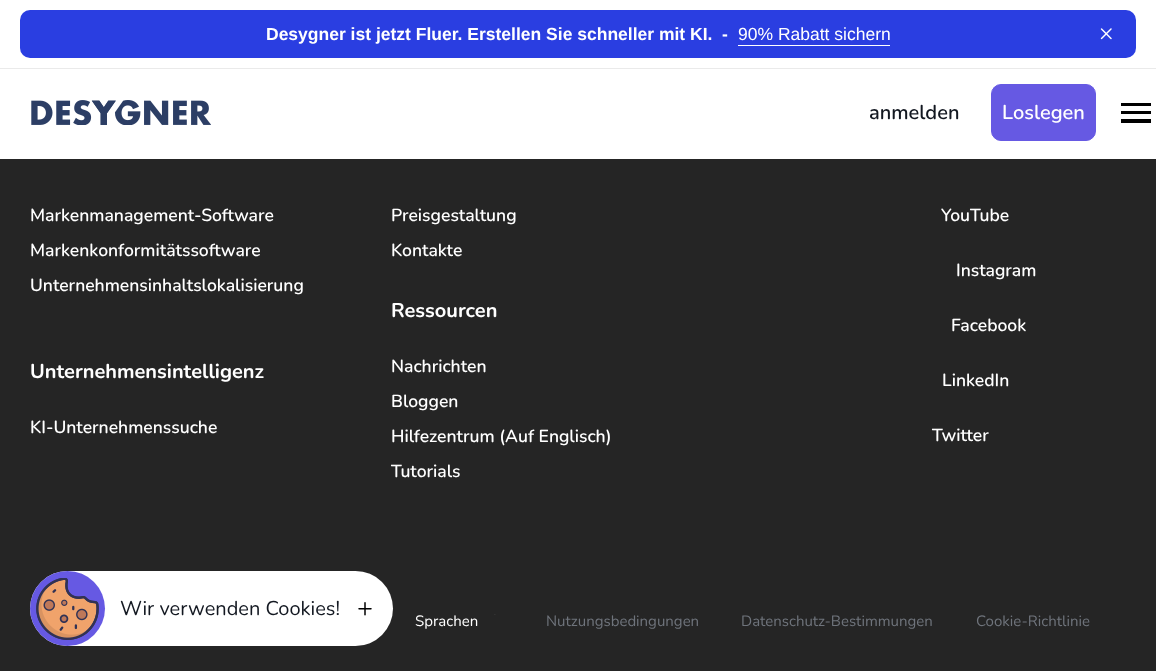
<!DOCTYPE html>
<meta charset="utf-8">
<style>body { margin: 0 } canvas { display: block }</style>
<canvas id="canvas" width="1156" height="671"></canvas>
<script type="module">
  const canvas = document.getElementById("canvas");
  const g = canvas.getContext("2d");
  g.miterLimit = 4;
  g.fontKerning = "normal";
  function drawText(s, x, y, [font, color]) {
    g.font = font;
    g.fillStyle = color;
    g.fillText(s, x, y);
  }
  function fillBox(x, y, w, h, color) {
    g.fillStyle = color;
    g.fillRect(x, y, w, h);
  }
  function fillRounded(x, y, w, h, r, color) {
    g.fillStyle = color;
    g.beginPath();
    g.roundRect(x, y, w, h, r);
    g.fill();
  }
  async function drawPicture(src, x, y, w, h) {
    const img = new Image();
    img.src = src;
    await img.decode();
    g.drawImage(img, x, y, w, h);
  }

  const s1 = ["bold 17.5px Liberation Sans", "#FFFFFF"];
  const s2 = ["17.5px Liberation Sans", "#FFFFFF"];
  const s3 = ["600 20px Nunito", "#131821"];
  const s4 = ["600 20px Nunito", "#FFFFFF"];
  const s5 = ["600 17.5px Nunito", "#FFFFFF"];
  const s6 = ["bold 20px Nunito", "#FFFFFF"];
  const s7 = ["15px Nunito", "#FFFFFF"];
  const s8 = ["15px Nunito", "#6F747C"];
  const s9 = ["20px Nunito", "#131821"];

  fillBox(0, 0, 1156, 671, "#252525");
  fillBox(0, 0, 1156, 159, "#FFFFFF");
  fillBox(0, 68, 1156, 1, "#EAEAEA");
  fillRounded(20, 10, 1116, 48, 10, "#2A3EE1");
  drawText("Desygner ist jetzt Fluer. Erstellen Sie schneller mit KI.", 266, 40, s1);
  drawText("-", 722, 40, s1);
  drawText("90% Rabatt sichern", 738, 40, s2);
  fillBox(738, 45, 152, 1, "#FFFFFF");
  await drawPicture("pic1.png", 1100, 28, 12, 12);
  await drawPicture("pic2.png", 31, 100, 180, 25);
  drawText("anmelden", 869, 119, s3);
  g.fillStyle = "#6659E3";
  g.beginPath();
  g.roundRect(991.5, 84.5, 104, 56, 9.5);
  g.fill();
  g.strokeStyle = "#6659E3";
  g.stroke();
  drawText("Loslegen", 1002, 119, s4);
  fillBox(1121, 103, 30, 3, "#000000");
  fillBox(1121, 111, 30, 3, "#000000");
  fillBox(1121, 119, 30, 4, "#000000");
  drawText("Markenmanagement-Software", 30, 221, s5);
  drawText("Markenkonformitätssoftware", 30, 256, s5);
  drawText("Unternehmensinhaltslokalisierung", 30, 291, s5);
  drawText("Unternehmensintelligenz", 30, 378, s6);
  drawText("KI-Unternehmenssuche", 30, 433, s5);
  drawText("Preisgestaltung", 391, 221, s5);
  drawText("Kontakte", 391, 256, s5);
  drawText("Ressourcen", 391, 317, s6);
  drawText("Nachrichten", 391, 372, s5);
  drawText("Bloggen", 391, 407, s5);
  drawText("Hilfezentrum (Auf Englisch)", 391, 442, s5);
  drawText("Tutorials", 391, 477, s5);
  drawText("YouTube", 941, 221, s5);
  drawText("Instagram", 956, 276, s5);
  drawText("Facebook", 951, 331, s5);
  drawText("LinkedIn", 942, 386, s5);
  drawText("Twitter", 932, 441, s5);
  await drawPicture("pic3.png", 494, 614, 2, 1);
  drawText("Sprachen", 415, 626, s7);
  drawText("Nutzungsbedingungen", 546, 626, s8);
  drawText("Datenschutz-Bestimmungen", 741, 626, s8);
  drawText("Cookie-Richtlinie", 976, 626, s8);
  fillRounded(30, 571, 363, 75, 37.5, "#FFFFFF");
  g.fillStyle = "#6659E3";
  g.beginPath();
  g.arc(67.5, 608.5, 37.5, 0, Math.PI * 2);
  g.fill();
  await drawPicture("pic4.png", 36, 578, 63, 62);
  drawText("Wir verwenden Cookies!", 120, 615, s9);
  await drawPicture("pic5.png", 358, 602, 14, 14);
</script>
